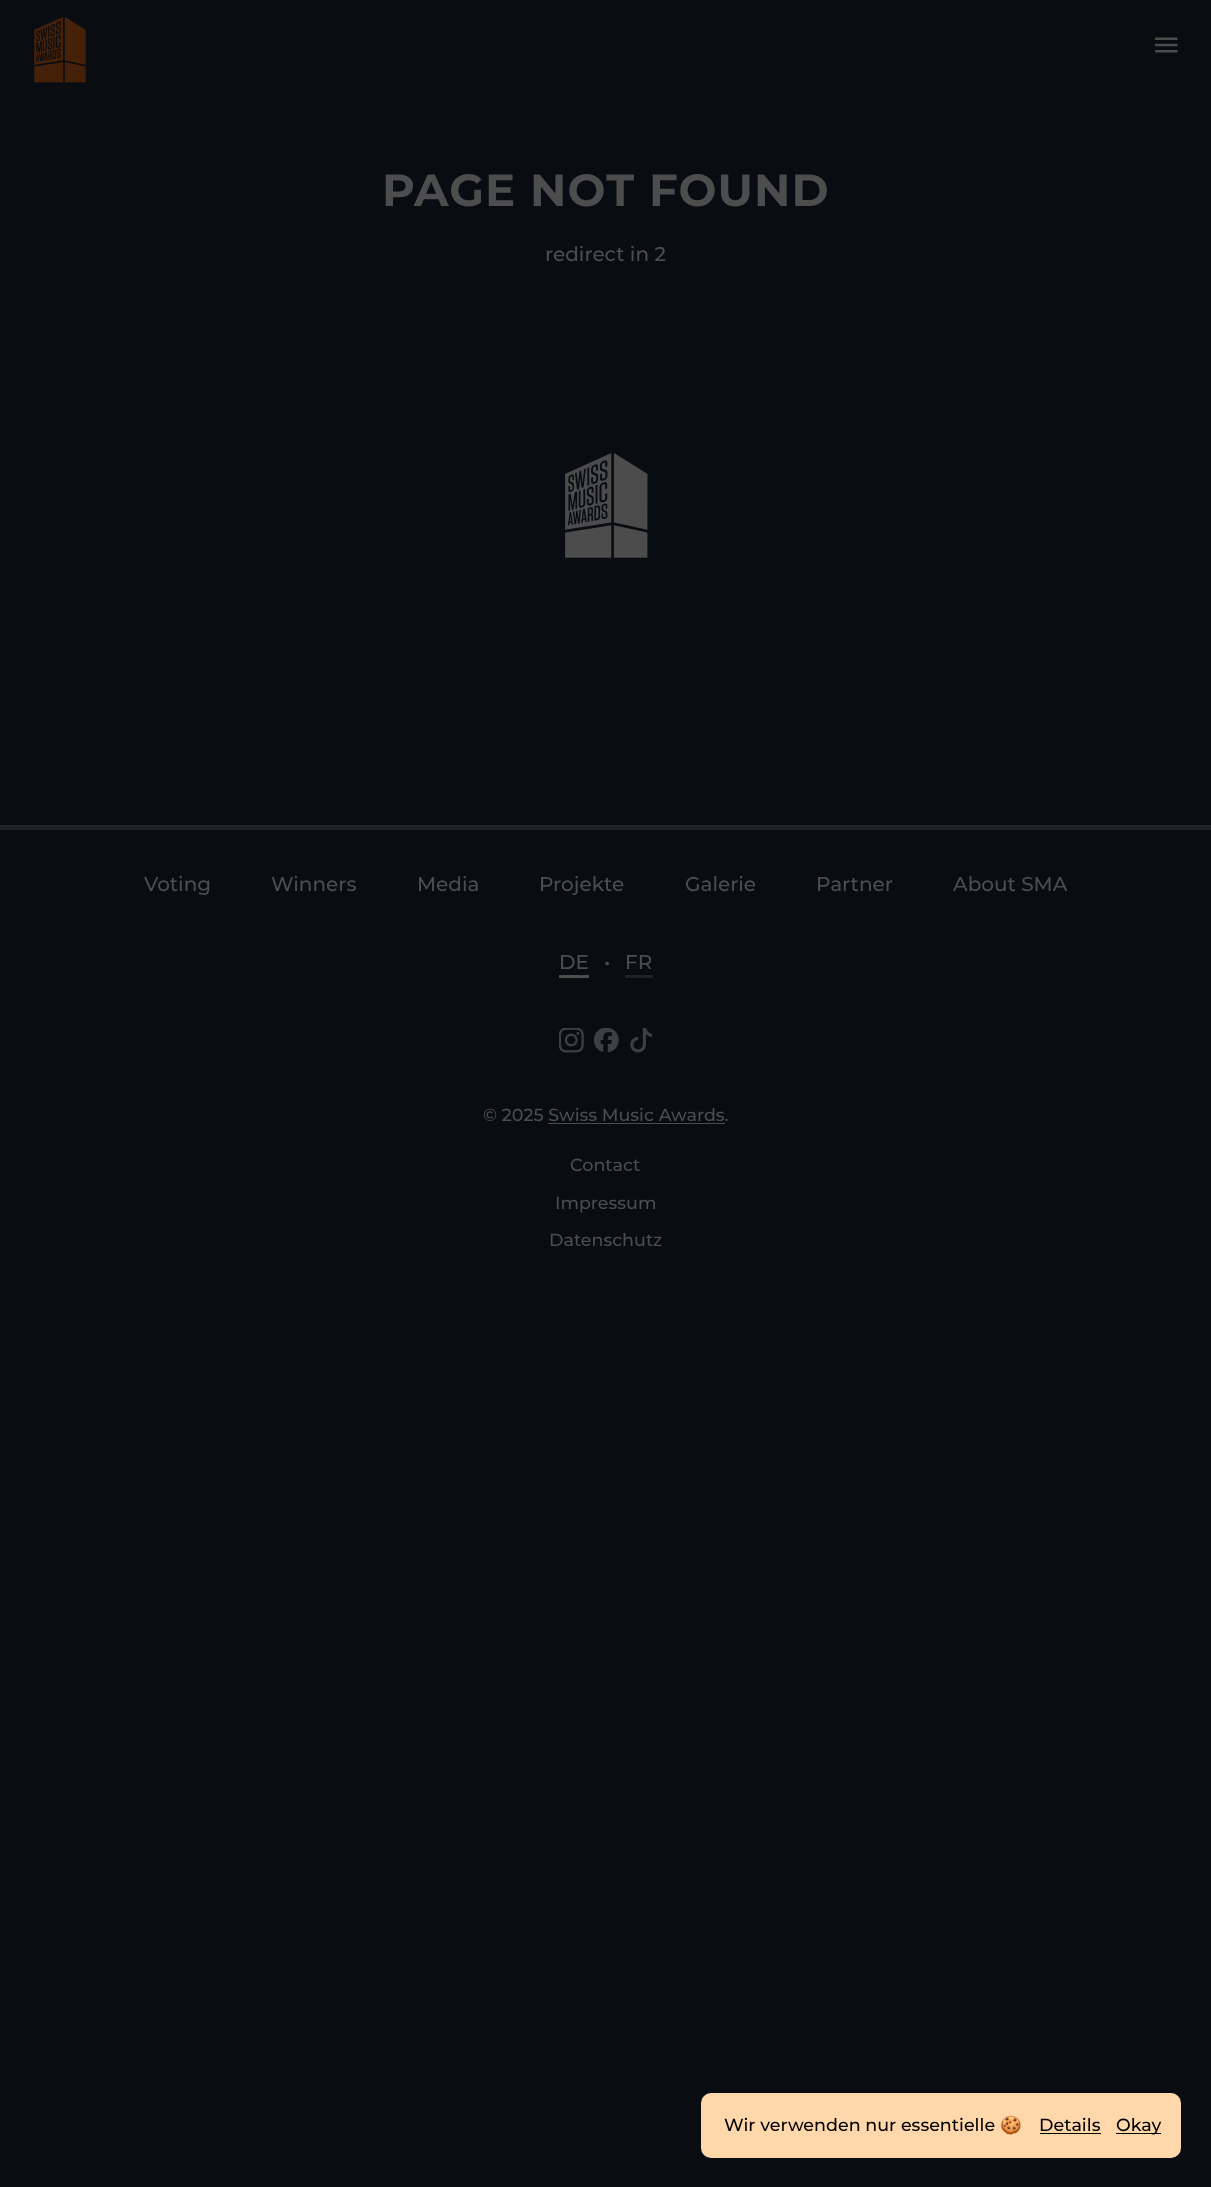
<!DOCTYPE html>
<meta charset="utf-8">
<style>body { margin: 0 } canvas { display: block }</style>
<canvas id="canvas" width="1211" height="2187"></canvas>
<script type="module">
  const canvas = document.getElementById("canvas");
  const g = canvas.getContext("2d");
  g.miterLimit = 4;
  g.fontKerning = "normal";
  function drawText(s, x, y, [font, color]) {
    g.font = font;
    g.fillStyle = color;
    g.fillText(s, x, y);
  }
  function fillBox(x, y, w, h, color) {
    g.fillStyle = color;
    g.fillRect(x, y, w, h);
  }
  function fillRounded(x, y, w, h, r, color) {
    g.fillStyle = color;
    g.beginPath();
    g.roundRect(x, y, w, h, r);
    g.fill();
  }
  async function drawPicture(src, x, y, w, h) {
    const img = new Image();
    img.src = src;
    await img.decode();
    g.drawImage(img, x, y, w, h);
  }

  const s1 = ["bold 45px Montserrat", "#4D4D4D"];
  const s2 = ["500 20px Montserrat", "#4D4D4D"];
  const s3 = ["500 17.5px Montserrat", "#4D4D4D"];
  const s4 = ["500 17.5px Montserrat", "#000000"];
  const s5 = ["17.5px Noto Color Emoji", "#000000"];

  fillBox(0, 0, 1211, 2187, "#090C11");
  await drawPicture("pic1.png", 34, 17, 52, 66);
  await drawPicture("pic2.png", 1155, 37, 23, 16);
  g.letterSpacing = "1.1px";
  drawText("PAGE NOT FOUND", 382, 206, s1);
  g.letterSpacing = "0px";
  drawText("redirect in 2", 545, 261, s2);
  await drawPicture("pic3.png", 565, 453, 83, 105);
  fillBox(0, 825, 1211, 5, "#202226");
  drawText("Voting", 144, 891, s2);
  drawText("Winners", 271, 891, s2);
  drawText("Media", 417, 891, s2);
  drawText("Projekte", 539, 891, s2);
  drawText("Galerie", 685, 891, s2);
  drawText("Partner", 816, 891, s2);
  drawText("About SMA", 953, 891, s2);
  fillBox(559, 975, 30, 3, "#4D4D4D");
  drawText("DE", 559, 969, s2);
  drawText("•", 604, 969, s2);
  fillBox(625, 975, 28, 3, "#202226");
  drawText("FR", 625, 969, s2);
  await drawPicture("pic4.png", 559, 1028, 25, 25);
  await drawPicture("pic5.png", 594, 1028, 25, 25);
  await drawPicture("pic6.png", 630, 1028, 23, 25);
  drawText("© 2025 Swiss Music Awards.", 483, 1121, s3);
  fillBox(548, 1123, 177, 1, "#4D4D4D");
  drawText("Contact", 570, 1171, s3);
  drawText("Impressum", 555, 1209, s3);
  drawText("Datenschutz", 549, 1246, s3);
  fillRounded(701, 2093, 480, 65, 10, "#FED7AA");
  drawText("Wir verwenden nur essentielle", 724, 2131, s4);
  drawText("🍪", 1000, 2131, s5);
  drawText("Details", 1039, 2131, s4);
  fillBox(1040, 2133, 61, 1, "#000000");
  fillBox(1116, 2133, 45, 1, "#000000");
  drawText("Okay", 1116, 2131, s4);
</script>
